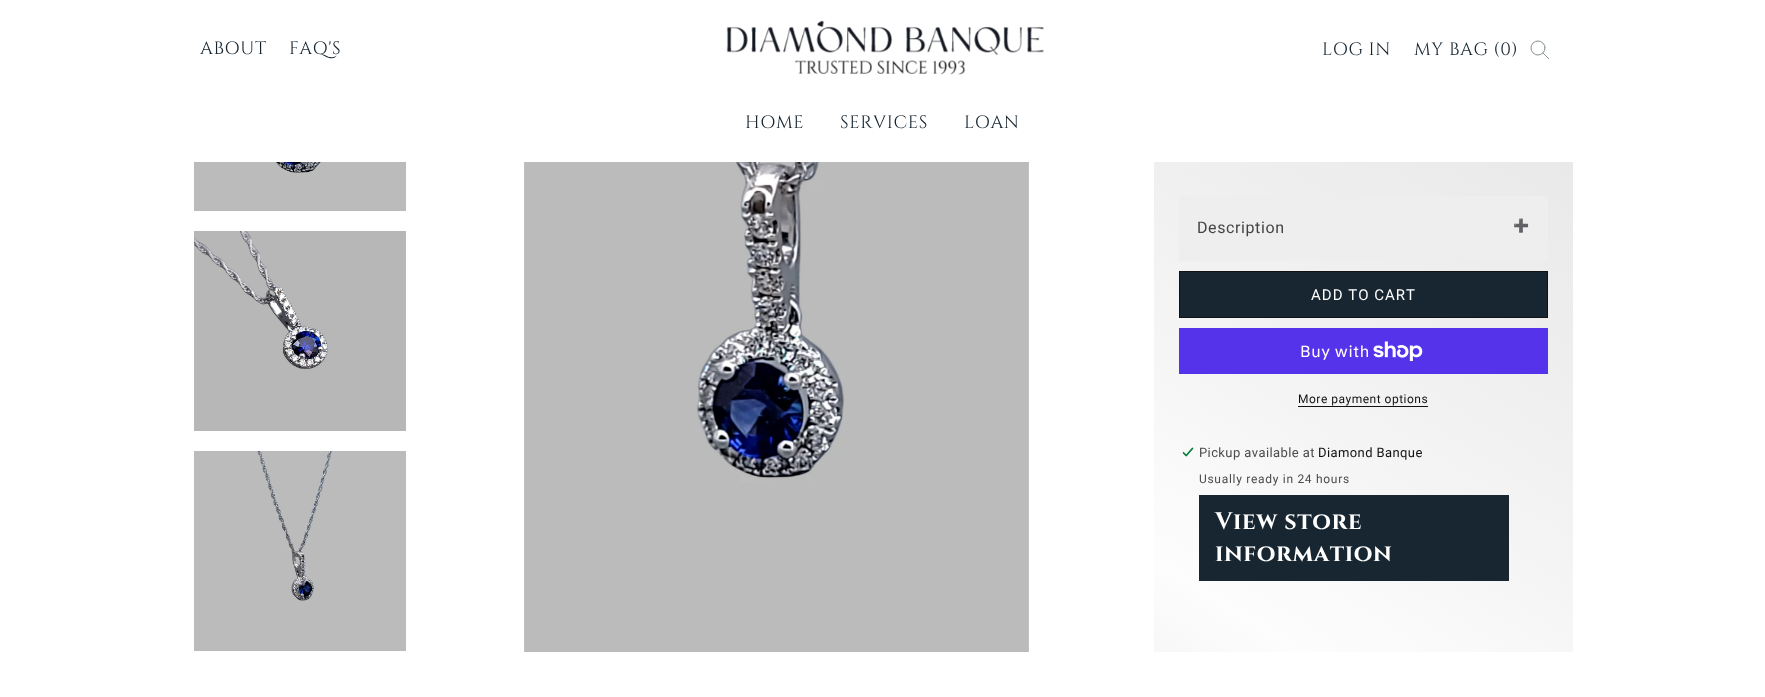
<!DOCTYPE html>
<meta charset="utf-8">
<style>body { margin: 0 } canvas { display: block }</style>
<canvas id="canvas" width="1765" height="697"></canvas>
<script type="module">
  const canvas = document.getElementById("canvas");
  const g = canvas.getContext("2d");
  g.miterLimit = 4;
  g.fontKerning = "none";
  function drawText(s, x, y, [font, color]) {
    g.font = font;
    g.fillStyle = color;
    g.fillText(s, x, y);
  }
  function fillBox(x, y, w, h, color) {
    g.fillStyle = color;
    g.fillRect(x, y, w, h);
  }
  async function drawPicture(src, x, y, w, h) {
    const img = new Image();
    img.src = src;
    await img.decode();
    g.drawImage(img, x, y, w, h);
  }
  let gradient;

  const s1 = ["18px Cinzel", "#15242F"];
  const s2 = ["16px Roboto", "#444444"];
  const s3 = ["13px Noto Color Emoji", "#777777"];
  const s4 = ["15px Roboto", "#FFFFFF"];
  const s5 = ["16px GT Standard", "#FFFFFF"];
  const s6 = ["12px Roboto", "#121212"];
  const s7 = ["13px Roboto", "#4B4B4B"];
  const s8 = ["13px Roboto", "#121212"];
  const s9 = ["12px Roboto", "#4B4B4B"];
  const s10 = ["bold 24px Cinzel", "#FFFFFF"];

  fillBox(0, 0, 1765, 697, "#FFFFFF");
  g.letterSpacing = "0.6px";
  drawText("ABOUT", 200, 54, s1);
  drawText("FAQ'S", 289, 54, s1);
  await drawPicture("pic1.png", 726, 20, 318, 55);
  drawText("LOG IN", 1322, 55, s1);
  drawText("MY BAG (0)", 1414, 55, s1);
  g.beginPath();
  g.moveTo(1548.5, 58.5);
  g.lineTo(1543, 53);
  g.strokeStyle = "#848F91";
  g.lineCap = "square";
  g.stroke();
  g.beginPath();
  g.arc(1538, 48, 7, 0, Math.PI * 2);
  g.stroke();
  drawText("HOME", 745, 128, s1);
  drawText("SERVICES", 840, 128, s1);
  drawText("LOAN", 964, 128, s1);
  await drawPicture("pic2.png", 194, 162, 212, 49);
  await drawPicture("pic3.png", 194, 231, 212, 200);
  await drawPicture("pic4.png", 194, 451, 212, 200);
  await drawPicture("pic5.png", 524, 162, 505, 490);
  gradient = g.createLinearGradient(1567, 6, 1160, 656);
  gradient.addColorStop(0, "#E5E5E5");
  gradient.addColorStop(0.55, "#F2F2F2");
  gradient.addColorStop(0.9, "#FDFDFD");
  gradient.addColorStop(1, "#F7F7F7");
  g.fillStyle = gradient;
  g.fillRect(1154, 162, 419, 490);
  fillBox(1179, 196, 369, 65, "#EEEEEE");
  drawText("Description", 1197, 233, s2);
  drawText("➕", 1513, 230, s3);
  fillBox(1180, 272, 367, 45, "#172631");
  g.strokeStyle = "#121212";
  g.strokeRect(1179.5, 271.5, 368, 46);
  g.letterSpacing = "1px";
  drawText("ADD TO CART", 1311, 300, s4);
  fillBox(1179, 328, 369, 46, "#5433EB");
  g.letterSpacing = "0.6px";
  drawText("Buy with", 1300, 357, s5);
  await drawPicture("pic6.png", 1373, 341, 50, 20);
  g.letterSpacing = "0.5px";
  drawText("More payment options", 1298, 403, s6);
  fillBox(1298, 406, 130, 1, "#121212");
  await drawPicture("pic7.png", 1182, 447, 12, 10);
  g.letterSpacing = "0.4px";
  drawText("Pickup available at", 1199, 457, s7);
  drawText("Diamond Banque", 1318, 457, s8);
  g.letterSpacing = "0.7px";
  drawText("Usually ready in 24 hours", 1199, 483, s9);
  fillBox(1199, 495, 310, 86, "#172631");
  g.letterSpacing = "0.6px";
  drawText("View store", 1215, 529, s10);
  drawText("information", 1215, 561, s10);
</script>
